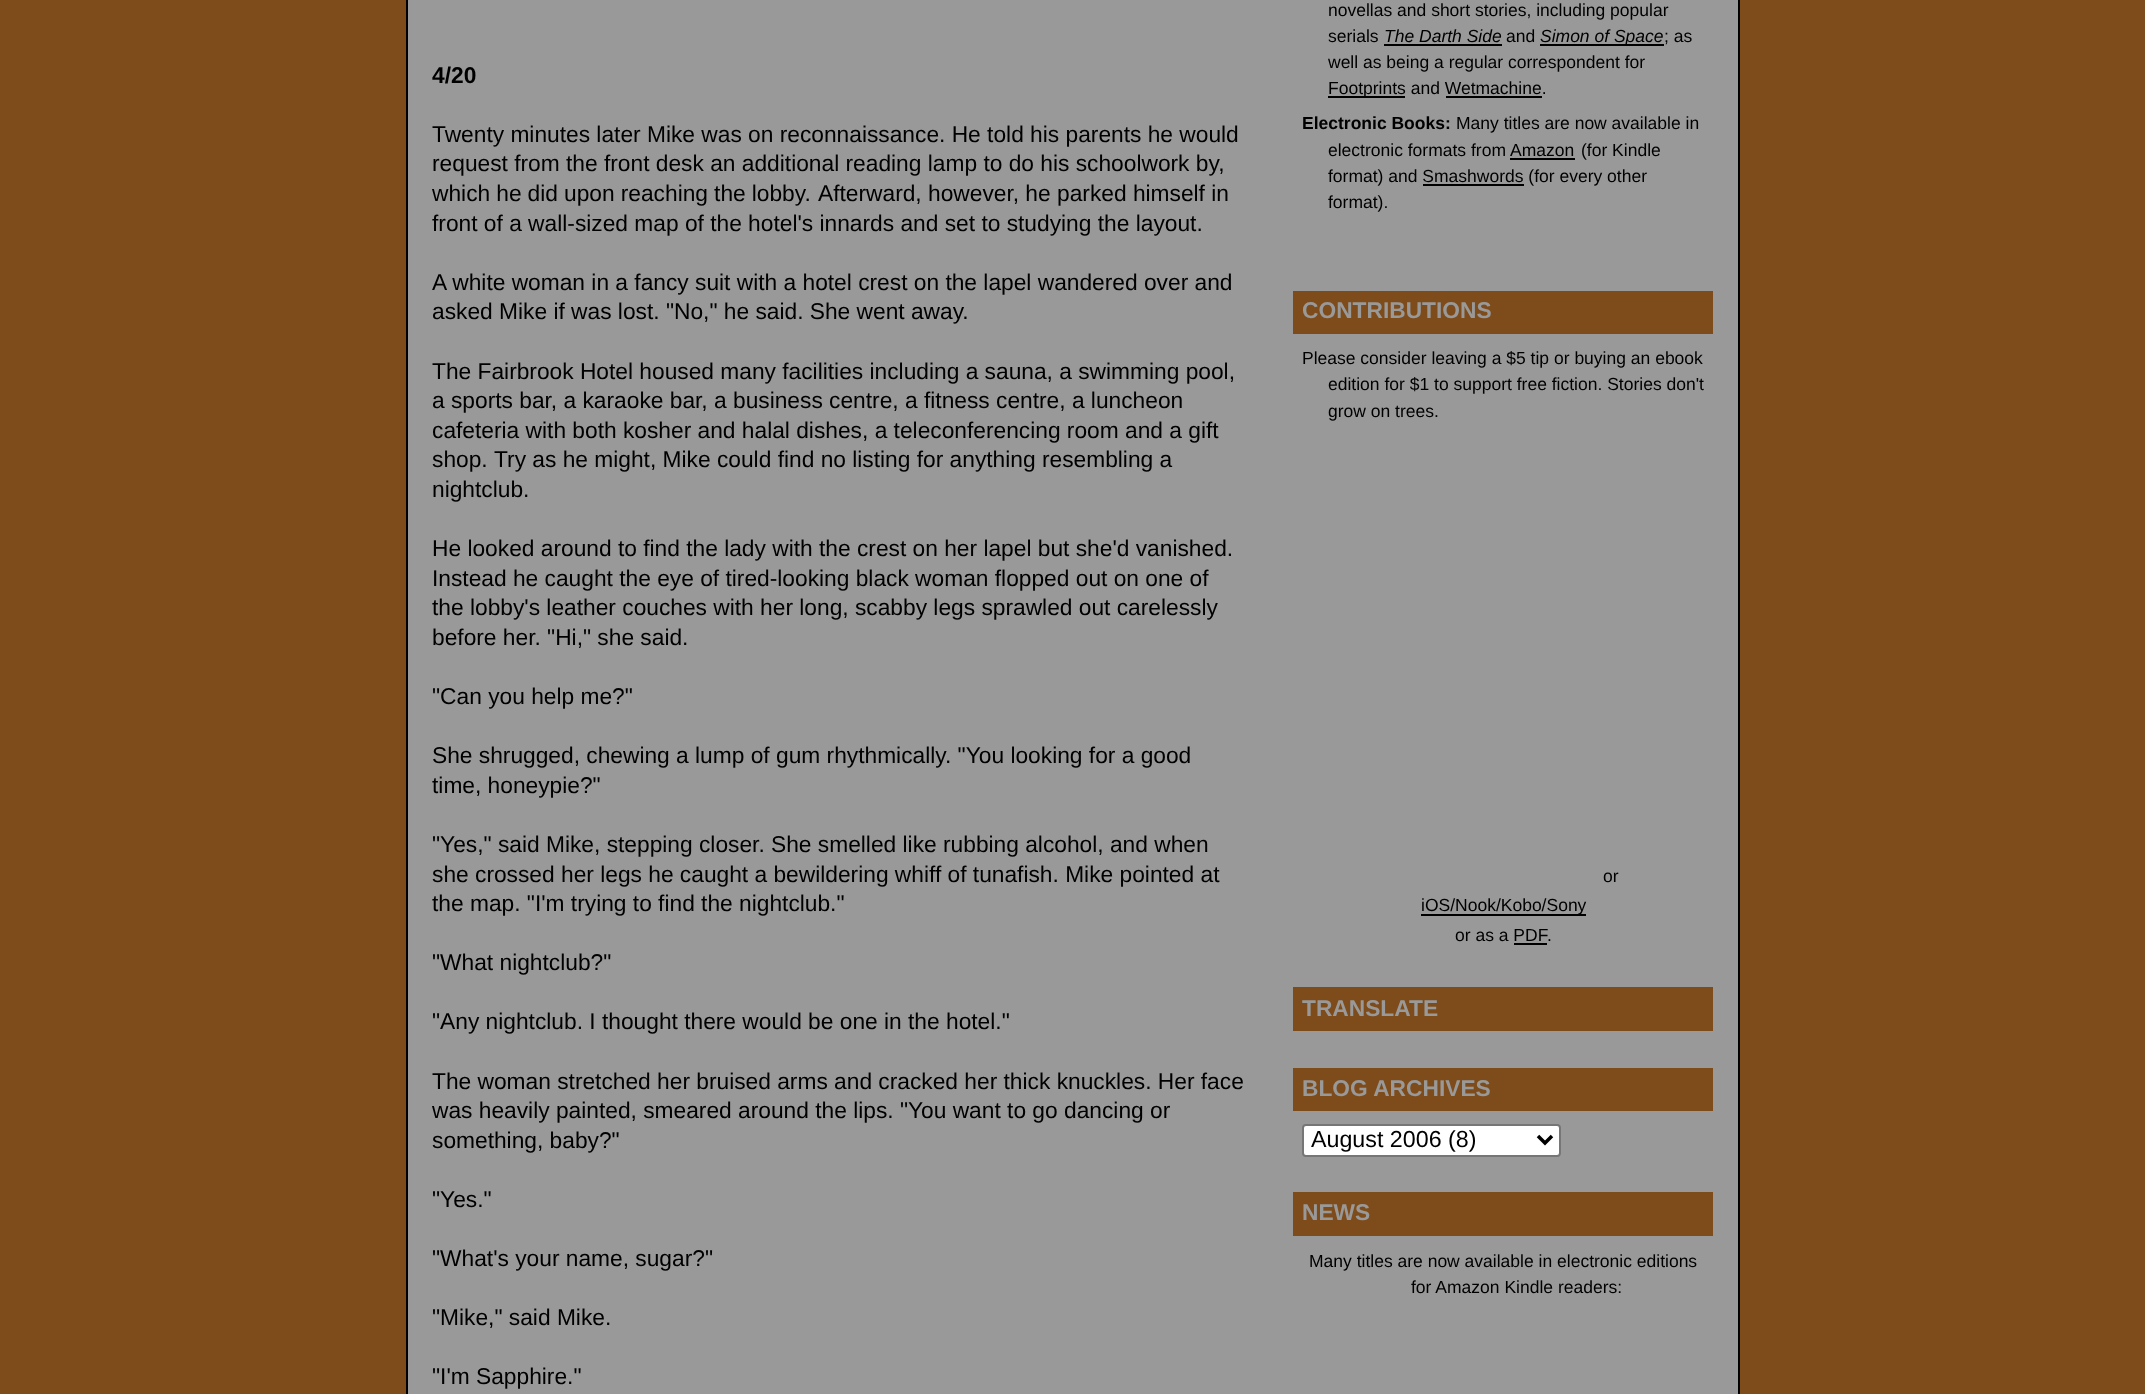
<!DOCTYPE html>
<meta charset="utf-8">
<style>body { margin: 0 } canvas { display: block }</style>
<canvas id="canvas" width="2145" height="1394"></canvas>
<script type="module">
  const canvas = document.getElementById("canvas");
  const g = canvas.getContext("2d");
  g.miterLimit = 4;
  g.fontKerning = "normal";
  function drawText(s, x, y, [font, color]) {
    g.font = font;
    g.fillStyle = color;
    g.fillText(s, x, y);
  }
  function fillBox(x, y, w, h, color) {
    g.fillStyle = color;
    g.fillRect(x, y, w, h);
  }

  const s1 = ["bold 22.75px Liberation Sans", "#000000"];
  const s2 = ["22.75px Liberation Sans", "#000000"];
  const s3 = ["17.5px Liberation Sans", "#000000"];
  const s4 = ["italic 17.5px Liberation Sans", "#000000"];
  const s5 = ["bold 17.5px Liberation Sans", "#000000"];
  const s6 = ["bold 22.75px Liberation Sans", "#999999"];
  const s7 = ["23.25px Liberation Sans", "#000000"];

  fillBox(0, 0, 2145, 1394, "#7E4C1B");
  fillBox(408, 0, 1330, 1394, "#999999");
  fillBox(1738, 0, 2, 1394, "#000000");
  fillBox(406, 0, 2, 1394, "#000000");
  drawText("4/20", 432, 83, s1);
  drawText("Twenty minutes later Mike was on reconnaissance. He told his parents he would", 432, 142, s2);
  drawText("request from the front desk an additional reading lamp to do his schoolwork by,", 432, 171, s2);
  g.wordSpacing = "-0.25px";
  drawText("which he did upon reaching the lobby.", 432, 201, s2);
  g.wordSpacing = "0px";
  drawText("Afterward, however, he parked himself in", 818, 201, s2);
  drawText("front of a wall-sized map of the hotel's innards and set to studying the layout.", 432, 231, s2);
  drawText("A white woman in a fancy suit with a hotel crest on the lapel wandered over and", 432, 290, s2);
  drawText("asked Mike if was lost. \"No,\" he said. She went away.", 432, 319, s2);
  drawText("The Fairbrook Hotel housed many facilities including a sauna, a swimming pool,", 432, 379, s2);
  drawText("a sports bar, a karaoke bar, a business centre, a fitness centre, a luncheon", 432, 408, s2);
  drawText("cafeteria with both kosher and halal dishes, a teleconferencing room and a gift", 432, 438, s2);
  drawText("shop.", 432, 467, s2);
  drawText("Try as he might, Mike could find no listing for anything resembling a", 494, 467, s2);
  drawText("nightclub.", 432, 497, s2);
  drawText("He looked around to find the lady with the crest on her lapel but she'd vanished.", 432, 556, s2);
  drawText("Instead he caught the eye of tired-looking black woman flopped out on one of", 432, 586, s2);
  drawText("the lobby's leather couches with her long, scabby legs sprawled out carelessly", 432, 615, s2);
  drawText("before her. \"Hi,\" she said.", 432, 645, s2);
  drawText("\"Can you help me?\"", 432, 704, s2);
  drawText("She shrugged, chewing a lump of gum rhythmically. \"You looking for a good", 432, 763, s2);
  drawText("time, honeypie?\"", 432, 793, s2);
  drawText("\"Yes,\" said Mike, stepping closer. She smelled like rubbing alcohol, and when", 432, 852, s2);
  drawText("she crossed her legs he caught a bewildering whiff of tunafish. Mike pointed at", 432, 882, s2);
  drawText("the map. \"I'm trying to find the nightclub.\"", 432, 911, s2);
  drawText("\"What nightclub?\"", 432, 970, s2);
  drawText("\"Any nightclub. I thought there would be one in the hotel.\"", 432, 1029, s2);
  drawText("The woman stretched her bruised arms and cracked her thick knuckles. Her face", 432, 1089, s2);
  drawText("was heavily painted, smeared around the lips. \"You want to go dancing or", 432, 1118, s2);
  drawText("something, baby?\"", 432, 1148, s2);
  drawText("\"Yes.\"", 432, 1207, s2);
  drawText("\"What's your name, sugar?\"", 432, 1266, s2);
  drawText("\"Mike,\" said Mike.", 432, 1325, s2);
  drawText("\"I'm Sapphire.\"", 432, 1384, s2);
  drawText("novellas and short stories, including popular", 1328, 16, s3);
  drawText("serials", 1328, 42, s3);
  drawText("The Darth Side", 1384, 42, s4);
  fillBox(1384, 44, 118, 2, "#000000");
  drawText("and", 1506, 42, s3);
  fillBox(1540, 44, 124, 2, "#000000");
  drawText("Simon of Space", 1540, 42, s4);
  drawText("; as", 1664, 42, s3);
  drawText("well as being a regular correspondent for", 1328, 68, s3);
  fillBox(1328, 96, 77, 2, "#000000");
  drawText("Footprints and Wetmachine.", 1328, 94, s3);
  fillBox(1446, 96, 96, 2, "#000000");
  drawText("Electronic Books:", 1302, 129, s5);
  drawText("Many titles are now available in", 1456, 129, s3);
  drawText("electronic formats from", 1328, 156, s3);
  drawText("Amazon", 1510, 156, s3);
  fillBox(1510, 158, 65, 2, "#000000");
  drawText("(for Kindle", 1581, 156, s3);
  drawText("format) and Smashwords (for every other", 1328, 182, s3);
  fillBox(1423, 184, 101, 2, "#000000");
  drawText("format).", 1328, 208, s3);
  fillBox(1293, 291, 420, 43, "#7E4C1B");
  drawText("CONTRIBUTIONS", 1302, 318, s6);
  drawText("Please consider leaving a $5 tip or buying an ebook", 1302, 364, s3);
  drawText("edition for $1 to support free fiction. Stories don't", 1328, 390, s3);
  drawText("grow on trees.", 1328, 417, s3);
  drawText("or", 1603, 882, s3);
  fillBox(1421, 914, 165, 2, "#000000");
  drawText("iOS/Nook/Kobo/Sony", 1421, 911, s3);
  drawText("or as a PDF", 1455, 941, s3);
  drawText(".", 1547, 941, s3);
  fillBox(1514, 943, 33, 2, "#000000");
  fillBox(1293, 987, 420, 44, "#7E4C1B");
  drawText("TRANSLATE", 1302, 1016, s6);
  fillBox(1293, 1068, 420, 43, "#7E4C1B");
  drawText("BLOG ARCHIVES", 1302, 1096, s6);
  g.fillStyle = "#FFFFFF";
  g.beginPath();
  g.roundRect(1303, 1125, 257, 31, 3);
  g.fill();
  g.strokeStyle = "#767676";
  g.lineWidth = 2;
  g.stroke();
  g.beginPath();
  g.moveTo(1538, 1136);
  g.lineTo(1545, 1143);
  g.lineTo(1552, 1136);
  g.strokeStyle = "#000000";
  g.lineWidth = 3.5;
  g.stroke();
  drawText("August 2006 (8)", 1311, 1147, s7);
  fillBox(1293, 1192, 420, 44, "#7E4C1B");
  drawText("NEWS", 1302, 1220, s6);
  drawText("Many titles are now available in electronic editions", 1309, 1267, s3);
  drawText("for Amazon Kindle readers:", 1411, 1293, s3);
</script>
